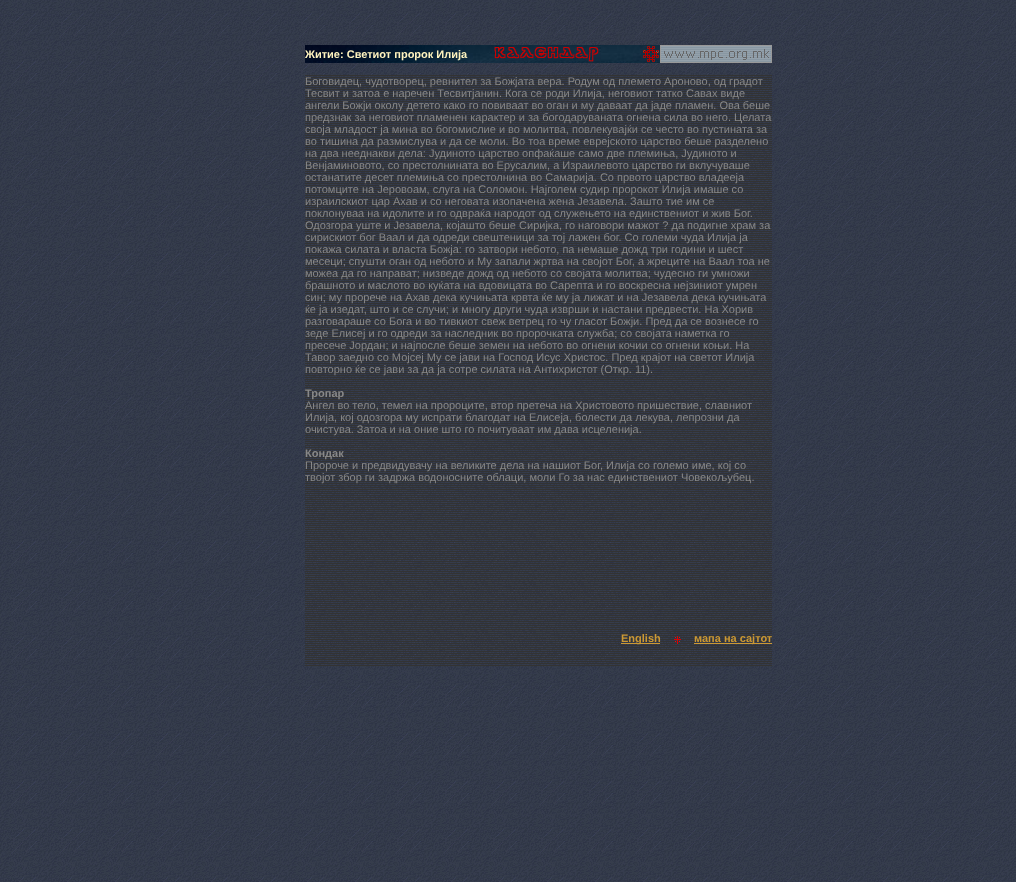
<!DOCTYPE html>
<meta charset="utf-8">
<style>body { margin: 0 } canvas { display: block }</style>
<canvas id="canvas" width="1016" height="882"></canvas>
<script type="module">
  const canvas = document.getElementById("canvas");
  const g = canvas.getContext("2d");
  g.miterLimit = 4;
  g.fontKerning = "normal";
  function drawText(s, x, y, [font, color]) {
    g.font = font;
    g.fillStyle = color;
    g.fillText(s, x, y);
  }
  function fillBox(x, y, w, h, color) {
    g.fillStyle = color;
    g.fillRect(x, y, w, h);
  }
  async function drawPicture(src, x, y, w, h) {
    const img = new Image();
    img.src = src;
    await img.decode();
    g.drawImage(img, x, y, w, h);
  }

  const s1 = ["bold 11px Liberation Sans", "#FFF4BF"];
  const s2 = ["11px Liberation Sans", "#888888"];
  const s3 = ["bold 11px Liberation Sans", "#888888"];
  const s4 = ["bold 11px Liberation Sans", "#CC9933"];

  fillBox(0, 0, 1016, 882, "#FFFFFF");
  await drawPicture("pic1.png", 0, 0, 1016, 882);
  await drawPicture("pic2.png", 305, 45, 355, 18);
  drawText("Житие: Светиот пророк Илија", 305, 58, s1);
  await drawPicture("pic3.png", 494, 47, 105, 15);
  await drawPicture("pic4.png", 643, 46, 16, 16);
  await drawPicture("pic5.png", 660, 45, 112, 18);
  await drawPicture("pic6.png", 305, 75, 467, 591);
  drawText("Боговидец, чудотворец, ревнител за Божјата вера. Родум од племето Ароново, од градот", 305, 85, s2);
  drawText("Тесвит и затоа е наречен Тесвитјанин. Кога се роди Илија, неговиот татко Савах виде", 305, 97, s2);
  drawText("ангели Божји околу детето како го повиваат во оган и му даваат да јаде пламен. Ова беше", 305, 109, s2);
  drawText("предзнак за неговиот пламенен карактер и за богодаруваната огнена сила во него. Целата", 305, 121, s2);
  drawText("своја младост ја мина во богомислие и во молитва, повлекувајќи се често во пустината за", 305, 133, s2);
  drawText("во тишина да размислува и да се моли. Во тоа време еврејското царство беше разделено", 305, 145, s2);
  drawText("на два нееднакви дела: Јудиното царство опфаќаше само две племиња, Јудиното и", 305, 157, s2);
  drawText("Венјаминовото, со престолнината во Ерусалим, а Израилевото царство ги вклучуваше", 305, 169, s2);
  drawText("останатите десет племиња со престолнина во Самарија. Со првото царство владееја", 305, 181, s2);
  drawText("потомците на Јеровоам, слуга на Соломон. Најголем судир пророкот Илија имаше со", 305, 193, s2);
  drawText("израилскиот цар Ахав и со неговата изопачена жена Језавела. Зашто тие им се", 305, 205, s2);
  drawText("поклонуваа на идолите и го одвраќа народот од служењето на единствениот и жив Бог.", 305, 217, s2);
  drawText("Одозгора уште и Језавела, којашто беше Сиријка, го наговори мажот ? да подигне храм за", 305, 229, s2);
  drawText("сирискиот бог Ваал и да одреди свештеници за тој лажен бог. Со големи чуда Илија ја", 305, 241, s2);
  drawText("покажа силата и власта Божја: го затвори небото, па немаше дожд три години и шест", 305, 253, s2);
  drawText("месеци; спушти оган од небото и Му запали жртва на својот Бог, а жреците на Ваал тоа не", 305, 265, s2);
  drawText("можеа да го направат; низведе дожд од небото со својата молитва; чудесно ги умножи", 305, 277, s2);
  drawText("брашното и маслото во куќата на вдовицата во Сарепта и го воскресна нејзиниот умрен", 305, 289, s2);
  drawText("син; му прорече на Ахав дека кучињата крвта ќе му ја лижат и на Језавела дека кучињата", 305, 301, s2);
  drawText("ќе ја изедат, што и се случи; и многу други чуда изврши и настани предвести. На Хорив", 305, 313, s2);
  drawText("разговараше со Бога и во тивкиот свеж ветрец го чу гласот Божји. Пред да се вознесе го", 305, 325, s2);
  drawText("зеде Елисеј и го одреди за наследник во пророчката служба; со својата наметка го", 305, 337, s2);
  drawText("пресече Јордан; и најпосле беше земен на небото во огнени кочии со огнени коњи. На", 305, 349, s2);
  drawText("Тавор заедно со Мојсеј Му се јави на Господ Исус Христос. Пред крајот на светот Илија", 305, 361, s2);
  drawText("повторно ќе се јави за да ја сотре силата на Антихристот (Откр. 11).", 305, 373, s2);
  drawText("Тропар", 305, 397, s3);
  drawText("Ангел во тело, темел на пророците, втор претеча на Христовото пришествие, славниот", 305, 409, s2);
  drawText("Илија, кој одозгора му испрати благодат на Елисеја, болести да лекува, лепрозни да", 305, 421, s2);
  drawText("очистува. Затоа и на оние што го почитуваат им дава исцеленија.", 305, 433, s2);
  drawText("Кондак", 305, 457, s3);
  drawText("Пророче и предвидувачу на великите дела на нашиот Бог, Илија со големо име, кој со", 305, 469, s2);
  drawText("твојот збор ги задржа водоносните облаци, моли Го за нас единствениот Човекољубец.", 305, 481, s2);
  fillBox(621, 643, 39, 1, "#CC9933");
  drawText("English", 621, 642, s4);
  await drawPicture("pic7.png", 674, 636, 7, 8);
  fillBox(694, 643, 78, 1, "#CC9933");
  drawText("мапа на сајтот", 694, 642, s4);
</script>
